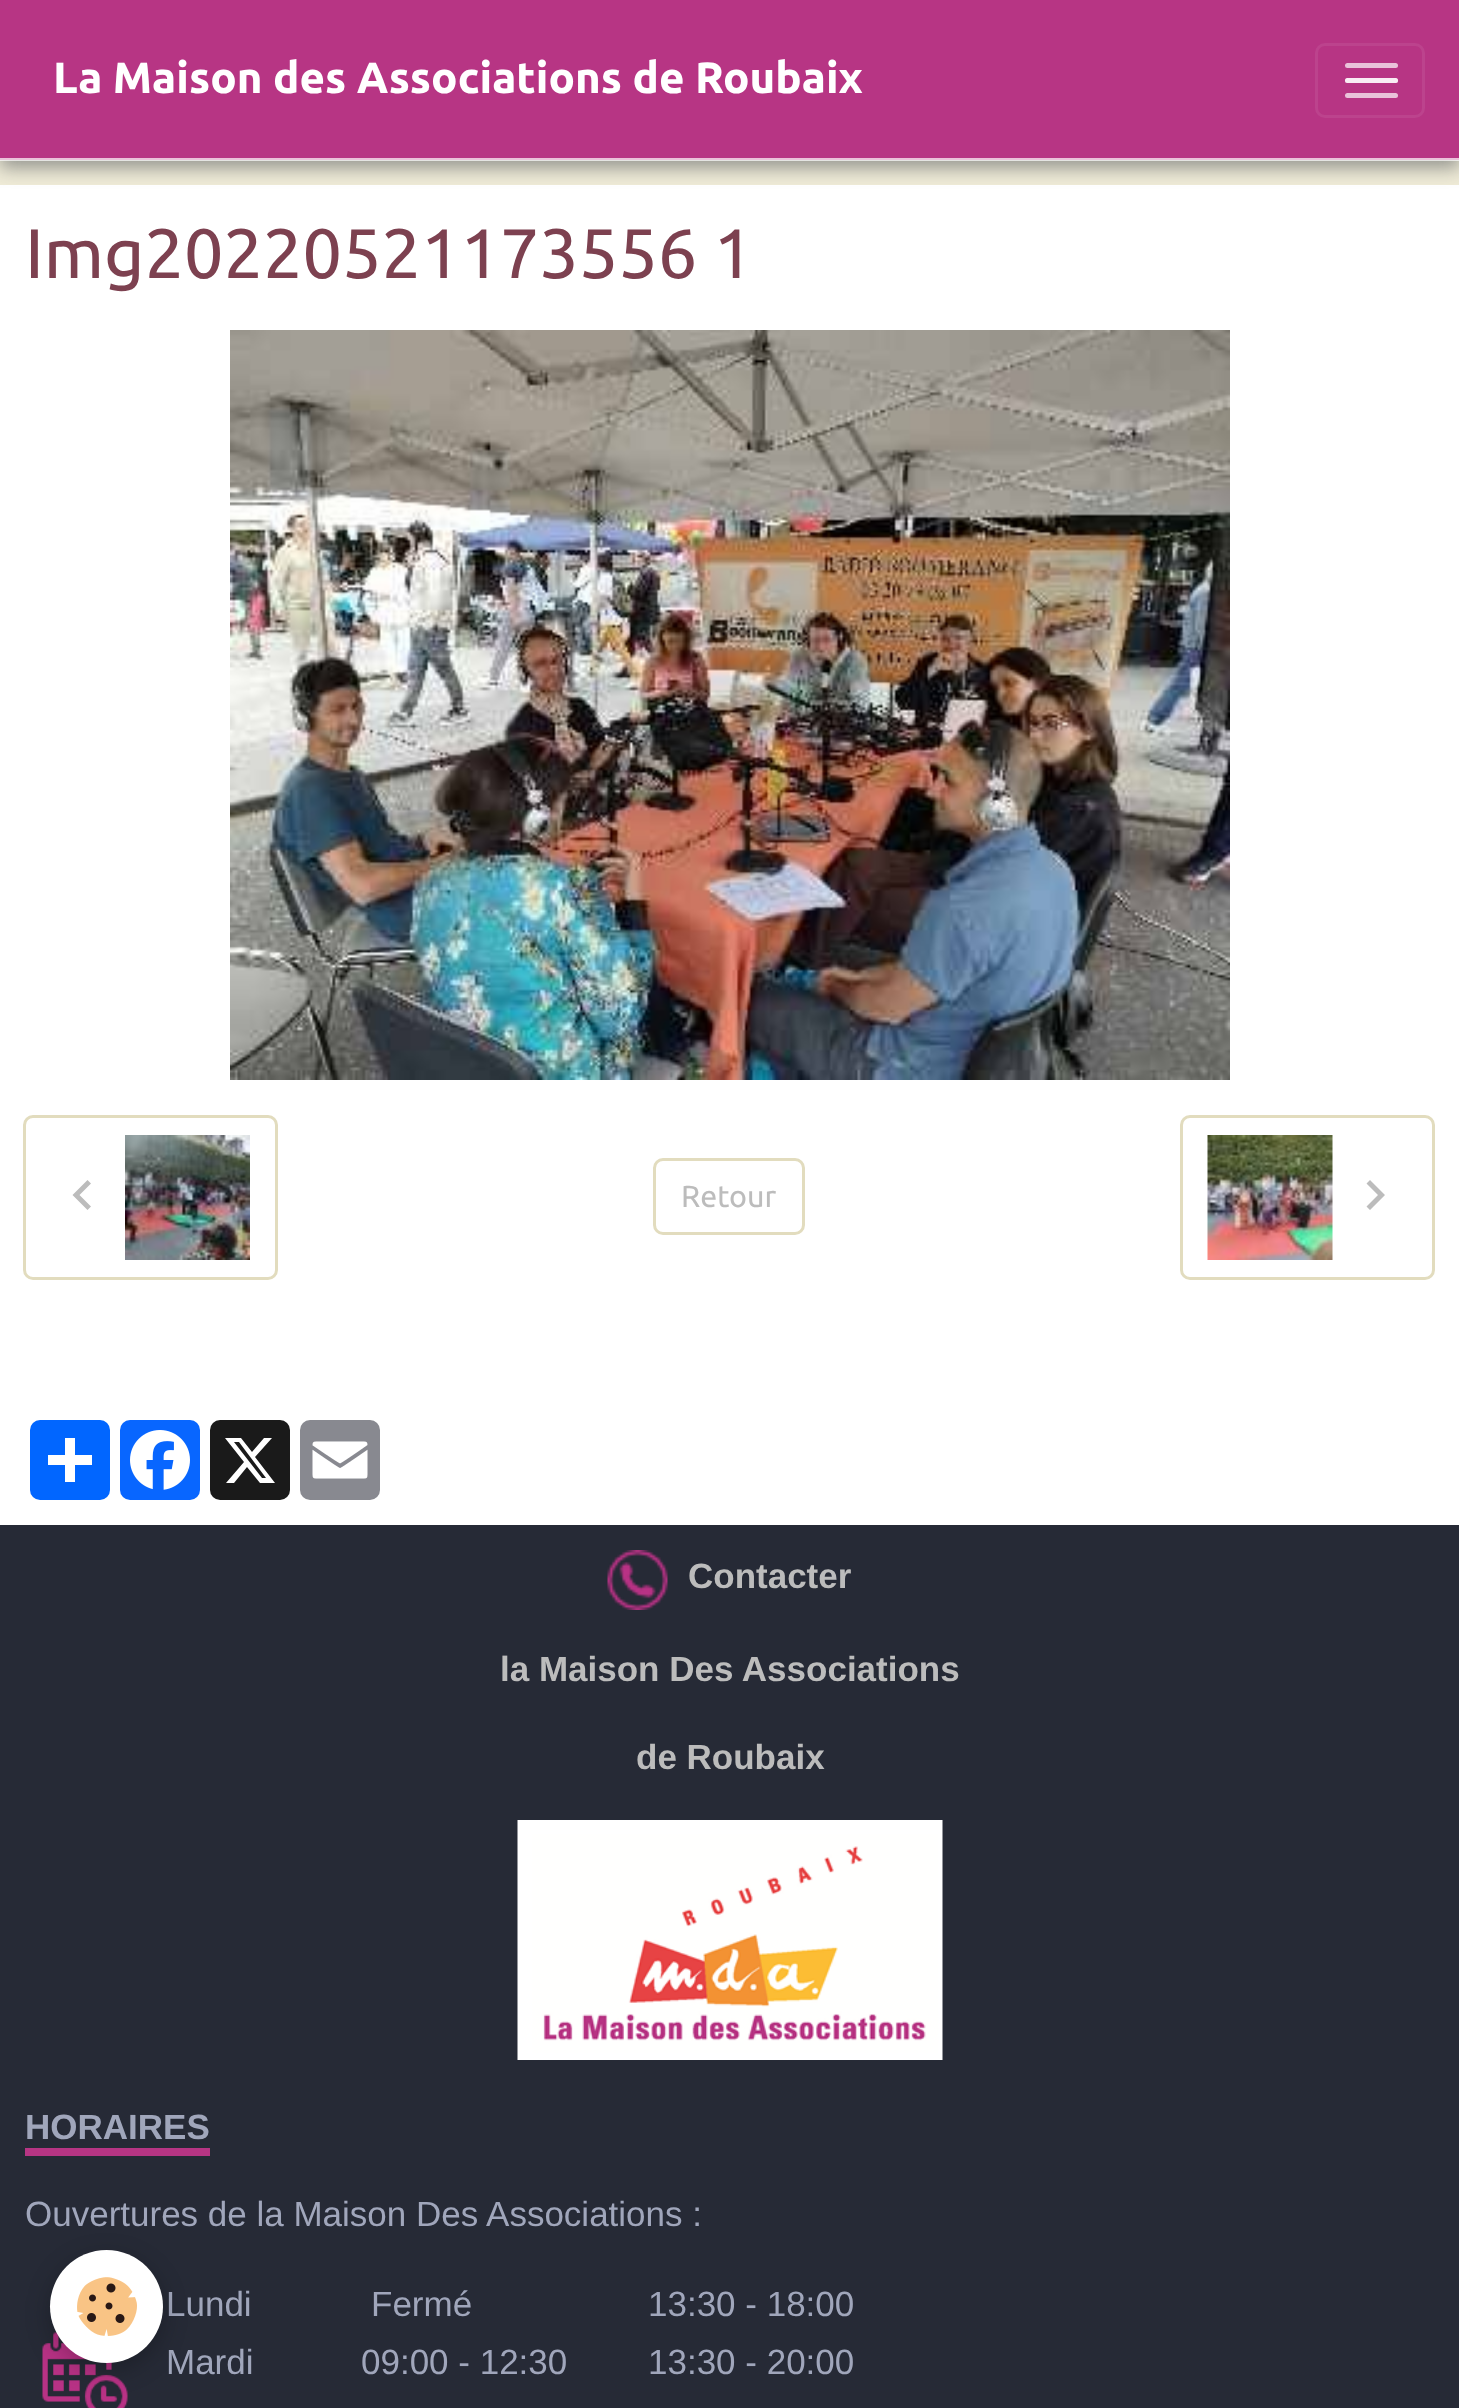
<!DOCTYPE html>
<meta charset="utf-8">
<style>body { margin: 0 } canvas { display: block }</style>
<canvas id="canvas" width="1459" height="2408"></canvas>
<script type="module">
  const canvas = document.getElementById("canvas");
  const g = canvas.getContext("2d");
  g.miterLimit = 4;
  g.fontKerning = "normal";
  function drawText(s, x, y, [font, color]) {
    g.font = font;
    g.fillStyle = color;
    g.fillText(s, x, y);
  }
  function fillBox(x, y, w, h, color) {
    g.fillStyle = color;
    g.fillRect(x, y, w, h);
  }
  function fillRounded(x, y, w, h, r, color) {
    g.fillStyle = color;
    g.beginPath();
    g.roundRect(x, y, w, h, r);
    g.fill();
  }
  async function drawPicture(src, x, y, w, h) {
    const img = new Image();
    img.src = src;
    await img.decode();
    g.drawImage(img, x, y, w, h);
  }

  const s1 = ["bold 43.75px Ubuntu", "#FFFFFF"];
  const s2 = ["70px Ubuntu", "#7D4150"];
  const s3 = ["30.5px Ubuntu", "#BCBCBC"];
  const s4 = ["bold 35px Liberation Sans", "#BCBCBC"];
  const s5 = ["bold 35px Liberation Sans", "#A0A6BB"];
  const s6 = ["35px Liberation Sans", "#A0A6BB"];

  fillBox(0, 0, 1459, 2408, "#EFEBD7");
  fillBox(0, 185, 1459, 1340, "#FFFFFF");
  g.fillStyle = "rgba(72, 78, 83, 0.54)";
  g.filter = "blur(9px)";
  g.beginPath();
  g.rect(0, 8, 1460, 160);
  g.fill();
  g.filter = "none";
  fillBox(0, 0, 1459, 160, "#B73584");
  fillBox(0, 158, 1459, 3, "rgba(255, 255, 255, 0.7)");
  drawText("La Maison des Associations de Roubaix", 53, 93, s1);
  g.beginPath();
  g.roundRect(1316.5, 44.5, 107, 72, 8.5);
  g.strokeStyle = "#BC438D";
  g.lineWidth = 3;
  g.stroke();
  fillRounded(1345, 63, 53, 5, 2.5, "#E9C2DA");
  fillRounded(1345, 78, 53, 5, 2.5, "#E9C2DA");
  fillRounded(1345, 78, 53, 5, 2.5, "rgba(255, 255, 255, 0.7)");
  fillRounded(1345, 93, 53, 5, 2.5, "#E9C2DA");
  drawText("Img20220521173556 1", 25, 278, s2);
  await drawPicture("pic1.png", 230, 330, 1000, 750);
  g.beginPath();
  g.roundRect(24.5, 1116.5, 252, 162, 8.5);
  g.strokeStyle = "#E2DCBE";
  g.stroke();
  g.fillStyle = "#BCBCBC";
  g.beginPath();
  g.moveTo(91, 1183.5);
  g.lineTo(79.5, 1195);
  g.lineTo(91, 1206.5);
  g.lineTo(87.5, 1210);
  g.lineTo(72.5, 1195);
  g.lineTo(87.5, 1180);
  g.closePath();
  g.fill();
  await drawPicture("pic2.png", 125, 1135, 125, 125);
  g.beginPath();
  g.roundRect(654.5, 1159.5, 149, 74, 8.5);
  g.stroke();
  drawText("Retour", 681, 1207, s3);
  g.beginPath();
  g.roundRect(1181.5, 1116.5, 252, 162, 8.5);
  g.stroke();
  await drawPicture("pic3.png", 1207, 1135, 126, 125);
  g.beginPath();
  g.moveTo(1370, 1180);
  g.lineTo(1385, 1195);
  g.lineTo(1370, 1210);
  g.lineTo(1366.5, 1206.5);
  g.lineTo(1378, 1195);
  g.lineTo(1366.5, 1183.5);
  g.closePath();
  g.fill();
  fillRounded(30, 1420, 80, 80, 10, "#0166FF");
  fillBox(65, 1438, 10, 44, "#FFFFFF");
  fillBox(48, 1455, 44, 10, "#FFFFFF");
  fillRounded(120, 1420, 80, 80, 10, "#0866FF");
  await drawPicture("pic4.png", 130, 1430, 60, 60);
  fillRounded(210, 1420, 80, 80, 10, "#1A1A1A");
  g.fillStyle = "#FFFFFF";
  g.beginPath();
  g.moveTo(264, 1438);
  g.lineTo(272, 1438);
  g.lineTo(255, 1457);
  g.lineTo(275, 1483);
  g.lineTo(260, 1483);
  g.lineTo(247, 1467);
  g.lineTo(234, 1483);
  g.lineTo(226, 1483);
  g.lineTo(244, 1462);
  g.lineTo(225, 1438);
  g.lineTo(241, 1438);
  g.lineTo(252, 1452);
  g.closePath();
  g.moveTo(262, 1478);
  g.lineTo(266, 1478);
  g.lineTo(239, 1442);
  g.lineTo(234, 1442);
  g.closePath();
  g.fill();
  fillRounded(300, 1420, 80, 80, 10, "#888990");
  await drawPicture("pic5.png", 312, 1441, 56, 38);
  fillBox(0, 1525, 1459, 883, "#262A36");
  await drawPicture("pic6.png", 607, 1550, 61, 60);
  drawText("Contacter", 688, 1588, s4);
  drawText("la Maison Des Associations", 500, 1681, s4);
  drawText("de Roubaix", 636, 1769, s4);
  await drawPicture("pic7.png", 517, 1820, 426, 240);
  drawText("HORAIRES", 25, 2139, s5);
  fillBox(25, 2148, 185, 8, "#B73584");
  drawText("Ouvertures de la Maison Des Associations :", 25, 2226, s6);
  drawText("Lundi", 166, 2316, s6);
  drawText("Fermé", 371, 2316, s6);
  drawText("13:30 - 18:00", 648, 2316, s6);
  await drawPicture("pic8.png", 42, 2332, 86, 76);
  drawText("Mardi", 166, 2374, s6);
  drawText("09:00 - 12:30", 361, 2374, s6);
  drawText("13:30 - 20:00", 648, 2374, s6);
  g.fillStyle = "rgba(0, 0, 0, 0.24)";
  g.filter = "blur(12.5px)";
  g.beginPath();
  g.roundRect(50, 2258, 113, 112, 56);
  g.fill();
  g.filter = "none";
  g.fillStyle = "#FFFFFF";
  g.beginPath();
  g.arc(106.5, 2306.5, 56.5, 0, Math.PI * 2);
  g.fill();
  await drawPicture("pic9.png", 77, 2277, 60, 59);
</script>
